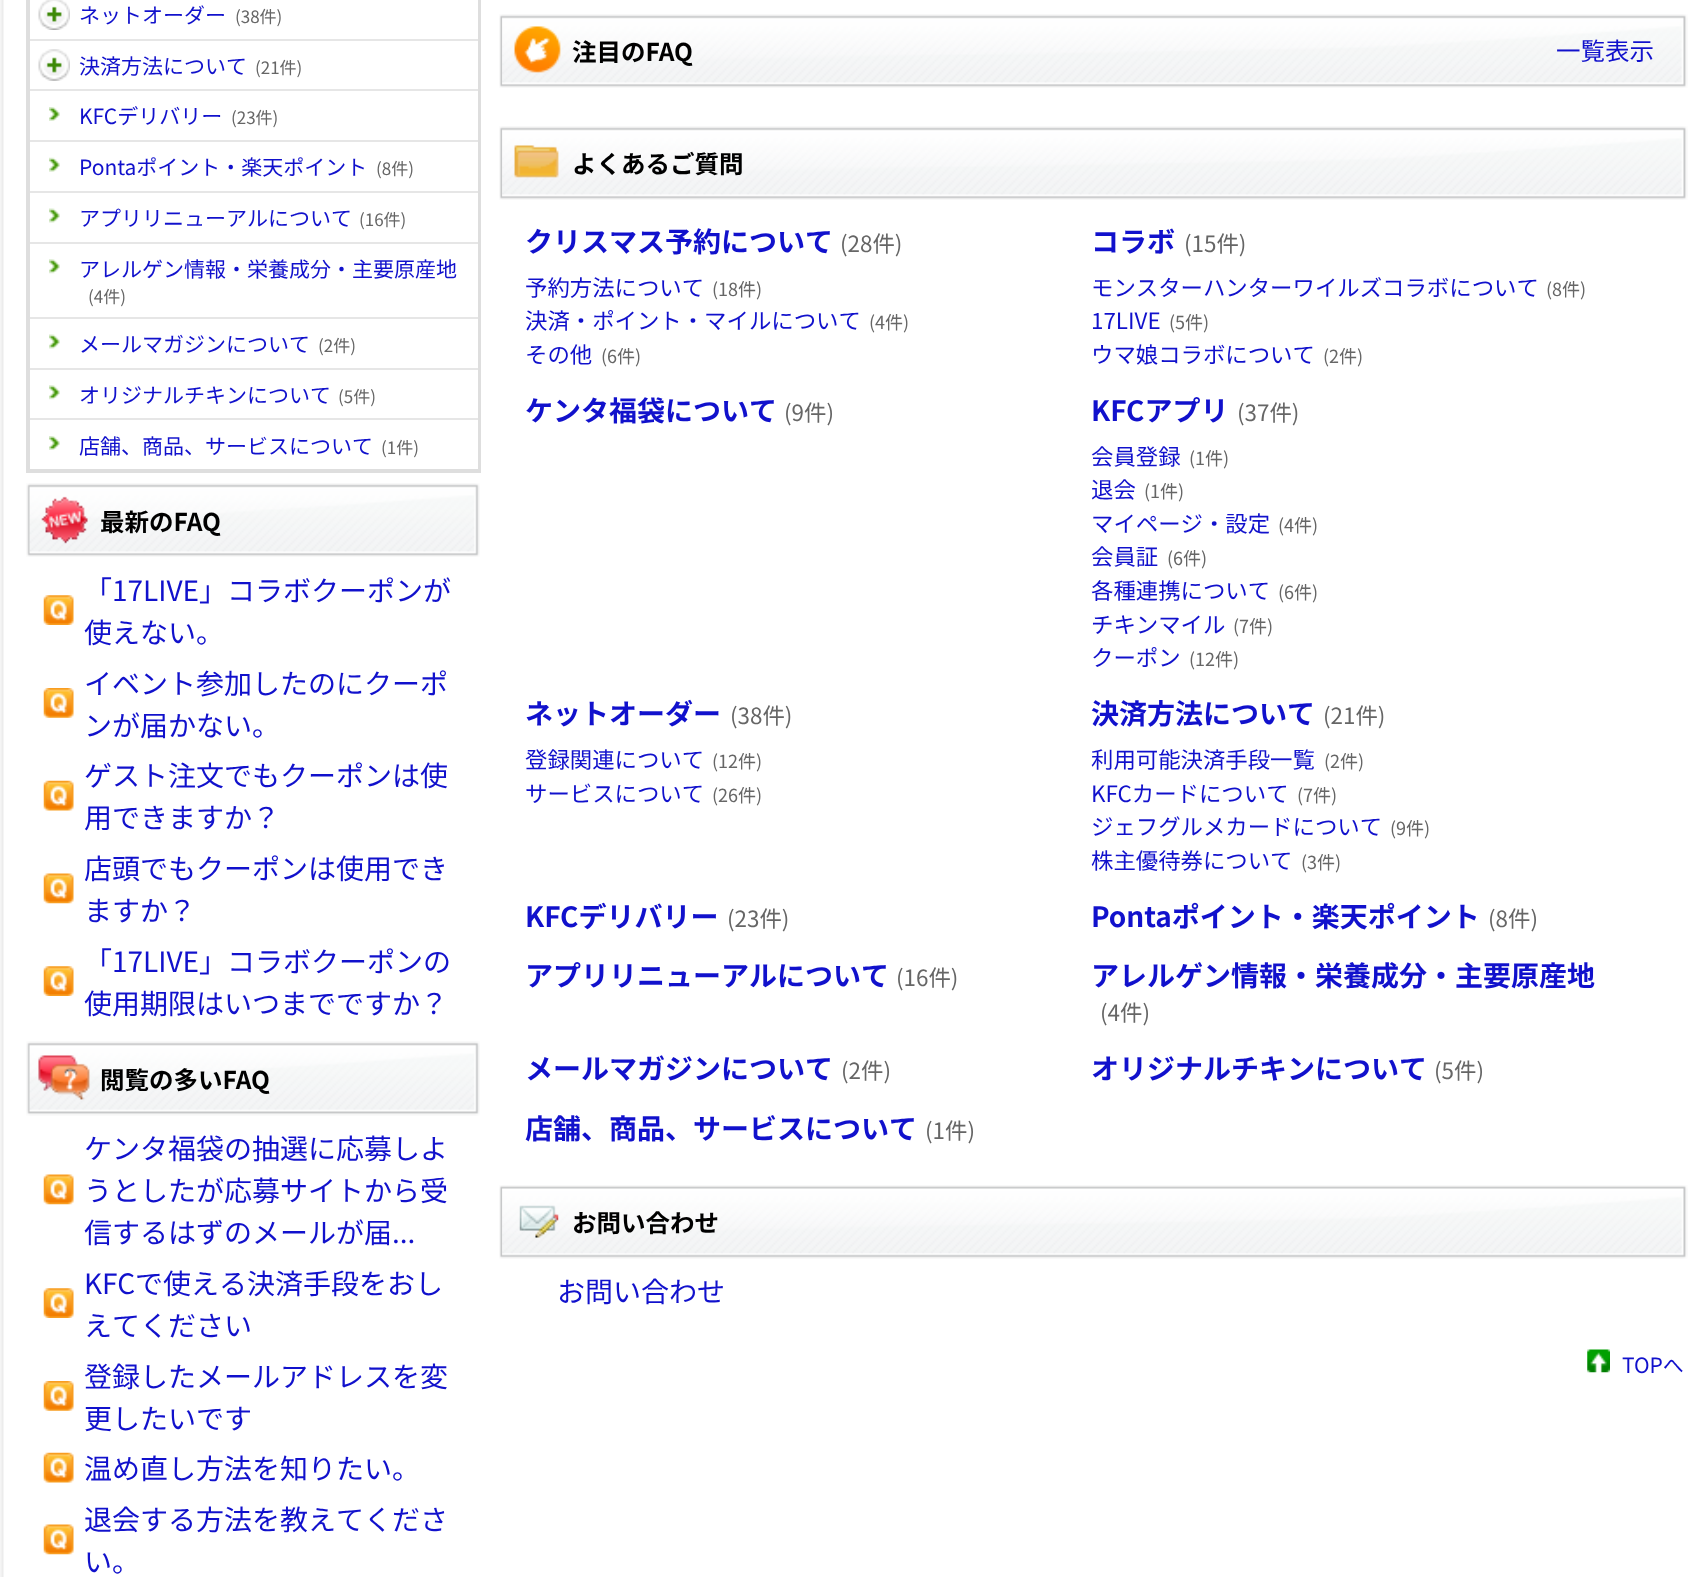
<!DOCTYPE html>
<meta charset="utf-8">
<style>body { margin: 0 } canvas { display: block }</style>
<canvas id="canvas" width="1698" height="1577"></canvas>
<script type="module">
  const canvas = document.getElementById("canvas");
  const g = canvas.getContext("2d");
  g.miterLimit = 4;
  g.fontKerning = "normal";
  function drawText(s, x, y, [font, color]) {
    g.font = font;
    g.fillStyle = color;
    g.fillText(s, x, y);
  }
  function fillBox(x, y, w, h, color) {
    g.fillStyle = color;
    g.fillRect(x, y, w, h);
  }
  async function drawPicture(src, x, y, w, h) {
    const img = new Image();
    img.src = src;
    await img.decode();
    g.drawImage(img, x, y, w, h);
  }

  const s1 = ["21px Noto Sans JP", "#1111CC"];
  const s2 = ["17px Noto Sans JP", "#666666"];
  const s3 = ["bold 24.5px Noto Sans JP", "#000000"];
  const s4 = ["28px Noto Sans JP", "#1111CC"];
  const s5 = ["24.5px Noto Sans JP", "#1111CC"];
  const s6 = ["bold 28px Noto Sans JP", "#1111CC"];
  const s7 = ["22.4px Noto Sans JP", "#666666"];
  const s8 = ["22.4px Noto Sans JP", "#1111CC"];
  const s9 = ["18px Noto Sans JP", "#666666"];

  fillBox(0, 0, 1698, 1577, "#FFFFFF");
  await drawPicture("pic1.png", 0, 0, 4, 1577);
  fillBox(26, 0, 455, 473, "#DEDEDE");
  fillBox(30, 0, 448, 469, "#FFFFFF");
  await drawPicture("pic2.png", 38, 0, 32, 30);
  drawText("ネットオーダー", 79, 23, s1);
  drawText("(38件)", 235, 23, s2);
  fillBox(30, 39, 448, 2, "#E6E6E6");
  await drawPicture("pic3.png", 38, 49, 32, 32);
  drawText("決済方法について", 79, 74, s1);
  drawText("(21件)", 255, 74, s2);
  fillBox(30, 89, 448, 2, "#E6E6E6");
  await drawPicture("pic4.png", 49, 107, 11, 14);
  drawText("KFCデリバリー", 79, 124, s1);
  drawText("(23件)", 231, 124, s2);
  fillBox(30, 140, 448, 2, "#E6E6E6");
  await drawPicture("pic5.png", 49, 157, 11, 15);
  drawText("Pontaポイント・楽天ポイント", 79, 175, s1);
  drawText("(8件)", 376, 175, s2);
  fillBox(30, 191, 448, 2, "#E6E6E6");
  await drawPicture("pic6.png", 49, 208, 11, 15);
  drawText("アプリリニューアルについて", 79, 226, s1);
  drawText("(16件)", 359, 226, s2);
  fillBox(30, 242, 448, 2, "#E6E6E6");
  await drawPicture("pic7.png", 49, 259, 11, 15);
  drawText("アレルゲン情報・栄養成分・主要原産地", 79, 277, s1);
  drawText("(4件)", 88, 303, s2);
  fillBox(30, 317, 448, 2, "#E6E6E6");
  await drawPicture("pic6.png", 49, 334, 11, 15);
  drawText("メールマガジンについて", 79, 352, s1);
  drawText("(2件)", 318, 352, s2);
  fillBox(30, 368, 448, 2, "#E6E6E6");
  await drawPicture("pic7.png", 49, 385, 11, 15);
  drawText("オリジナルチキンについて", 79, 403, s1);
  drawText("(5件)", 338, 403, s2);
  fillBox(30, 418, 448, 2, "#E6E6E6");
  await drawPicture("pic4.png", 49, 436, 11, 14);
  drawText("店舗、商品、サービスについて", 79, 454, s1);
  drawText("(1件)", 381, 454, s2);
  await drawPicture("pic8.png", 26, 483, 4, 74);
  await drawPicture("pic9.png", 29, 483, 451, 74);
  await drawPicture("pic10.png", 41, 496, 47, 48);
  drawText("最新のFAQ", 100, 531, s3);
  await drawPicture("pic11.png", 43, 595, 31, 30);
  drawText("「17LIVE」コラボクーポンが", 84, 601, s4);
  drawText("使えない。", 84, 643, s4);
  await drawPicture("pic12.png", 43, 688, 31, 30);
  drawText("イベント参加したのにクーポ", 84, 694, s4);
  drawText("ンが届かない。", 84, 736, s4);
  await drawPicture("pic13.png", 43, 780, 31, 31);
  drawText("ゲスト注文でもクーポンは使", 84, 786, s4);
  drawText("用できますか？", 84, 828, s4);
  await drawPicture("pic14.png", 43, 873, 31, 31);
  drawText("店頭でもクーポンは使用でき", 84, 879, s4);
  drawText("ますか？", 84, 921, s4);
  await drawPicture("pic11.png", 43, 966, 31, 30);
  drawText("「17LIVE」コラボクーポンの", 84, 972, s4);
  drawText("使用期限はいつまでですか？", 84, 1014, s4);
  await drawPicture("pic15.png", 26, 1041, 4, 75);
  await drawPicture("pic16.png", 29, 1041, 451, 75);
  await drawPicture("pic17.png", 38, 1055, 52, 45);
  drawText("閲覧の多いFAQ", 100, 1089, s3);
  await drawPicture("pic14.png", 43, 1174, 31, 31);
  drawText("ケンタ福袋の抽選に応募しよ", 84, 1159, s4);
  drawText("うとしたが応募サイトから受", 84, 1201, s4);
  drawText("信するはずのメールが届...", 84, 1243, s4);
  await drawPicture("pic11.png", 43, 1288, 31, 30);
  drawText("KFCで使える決済手段をおし", 84, 1294, s4);
  drawText("えてください", 84, 1336, s4);
  await drawPicture("pic12.png", 43, 1381, 31, 30);
  drawText("登録したメールアドレスを変", 84, 1387, s4);
  drawText("更したいです", 84, 1429, s4);
  await drawPicture("pic13.png", 43, 1452, 31, 31);
  drawText("温め直し方法を知りたい。", 84, 1479, s4);
  await drawPicture("pic18.png", 43, 1524, 31, 31);
  drawText("退会する方法を教えてくださ", 84, 1530, s4);
  drawText("い。", 84, 1572, s4);
  await drawPicture("pic19.png", 499, 14, 4, 74);
  await drawPicture("pic20.png", 502, 14, 1186, 74);
  await drawPicture("pic21.png", 514, 26, 47, 47);
  drawText("注目のFAQ", 572, 61, s3);
  drawText("一覧表示", 1556, 60, s5);
  await drawPicture("pic19.png", 499, 126, 4, 74);
  await drawPicture("pic20.png", 502, 126, 1186, 74);
  await drawPicture("pic22.png", 514, 145, 45, 33);
  drawText("よくあるご質問", 572, 173, s3);
  drawText("クリスマス予約について", 525, 252, s6);
  drawText("(28件)", 840, 252, s7);
  drawText("予約方法について", 525, 296, s8);
  drawText("(18件)", 712, 296, s9);
  drawText("決済・ポイント・マイルについて", 525, 329, s8);
  drawText("(4件)", 869, 329, s9);
  drawText("その他", 525, 363, s8);
  drawText("(6件)", 601, 363, s9);
  drawText("コラボ", 1091, 252, s6);
  drawText("(15件)", 1184, 252, s7);
  drawText("モンスターハンターワイルズコラボについて", 1091, 296, s8);
  drawText("(8件)", 1546, 296, s9);
  drawText("17LIVE", 1091, 329, s8);
  drawText("(5件)", 1169, 329, s9);
  drawText("ウマ娘コラボについて", 1091, 363, s8);
  drawText("(2件)", 1323, 363, s9);
  drawText("ケンタ福袋について", 525, 421, s6);
  drawText("(9件)", 784, 421, s7);
  drawText("KFCアプリ", 1091, 421, s6);
  drawText("(37件)", 1237, 421, s7);
  drawText("会員登録", 1091, 465, s8);
  drawText("(1件)", 1189, 465, s9);
  drawText("退会", 1091, 498, s8);
  drawText("(1件)", 1144, 498, s9);
  drawText("マイページ・設定", 1091, 532, s8);
  drawText("(4件)", 1278, 532, s9);
  drawText("会員証", 1091, 565, s8);
  drawText("(6件)", 1167, 565, s9);
  drawText("各種連携について", 1091, 599, s8);
  drawText("(6件)", 1278, 599, s9);
  drawText("チキンマイル", 1091, 633, s8);
  drawText("(7件)", 1233, 633, s9);
  drawText("クーポン", 1091, 666, s8);
  drawText("(12件)", 1189, 666, s9);
  drawText("ネットオーダー", 525, 724, s6);
  drawText("(38件)", 730, 724, s7);
  drawText("登録関連について", 525, 768, s8);
  drawText("(12件)", 712, 768, s9);
  drawText("サービスについて", 525, 802, s8);
  drawText("(26件)", 712, 802, s9);
  drawText("決済方法について", 1091, 724, s6);
  drawText("(21件)", 1323, 724, s7);
  drawText("利用可能決済手段一覧", 1091, 768, s8);
  drawText("(2件)", 1324, 768, s9);
  drawText("KFCカードについて", 1091, 802, s8);
  drawText("(7件)", 1297, 802, s9);
  drawText("ジェフグルメカードについて", 1091, 835, s8);
  drawText("(9件)", 1390, 835, s9);
  drawText("株主優待券について", 1091, 869, s8);
  drawText("(3件)", 1301, 869, s9);
  drawText("KFCデリバリー", 525, 927, s6);
  drawText("(23件)", 727, 927, s7);
  drawText("Pontaポイント・楽天ポイント", 1091, 927, s6);
  drawText("(8件)", 1488, 927, s7);
  drawText("アプリリニューアルについて", 525, 986, s6);
  drawText("(16件)", 896, 986, s7);
  drawText("アレルゲン情報・栄養成分・主要原産地", 1091, 986, s6);
  drawText("(4件)", 1100, 1021, s7);
  drawText("メールマガジンについて", 525, 1079, s6);
  drawText("(2件)", 841, 1079, s7);
  drawText("オリジナルチキンについて", 1091, 1079, s6);
  drawText("(5件)", 1434, 1079, s7);
  drawText("店舗、商品、サービスについて", 525, 1139, s6);
  drawText("(1件)", 925, 1139, s7);
  await drawPicture("pic23.png", 499, 1185, 4, 74);
  await drawPicture("pic24.png", 502, 1185, 1186, 74);
  await drawPicture("pic25.png", 519, 1205, 40, 33);
  drawText("お問い合わせ", 572, 1232, s3);
  drawText("お問い合わせ", 557, 1302, s4);
  await drawPicture("pic26.png", 1587, 1349, 23, 24);
  drawText("TOPへ", 1622, 1373, s1);
</script>
